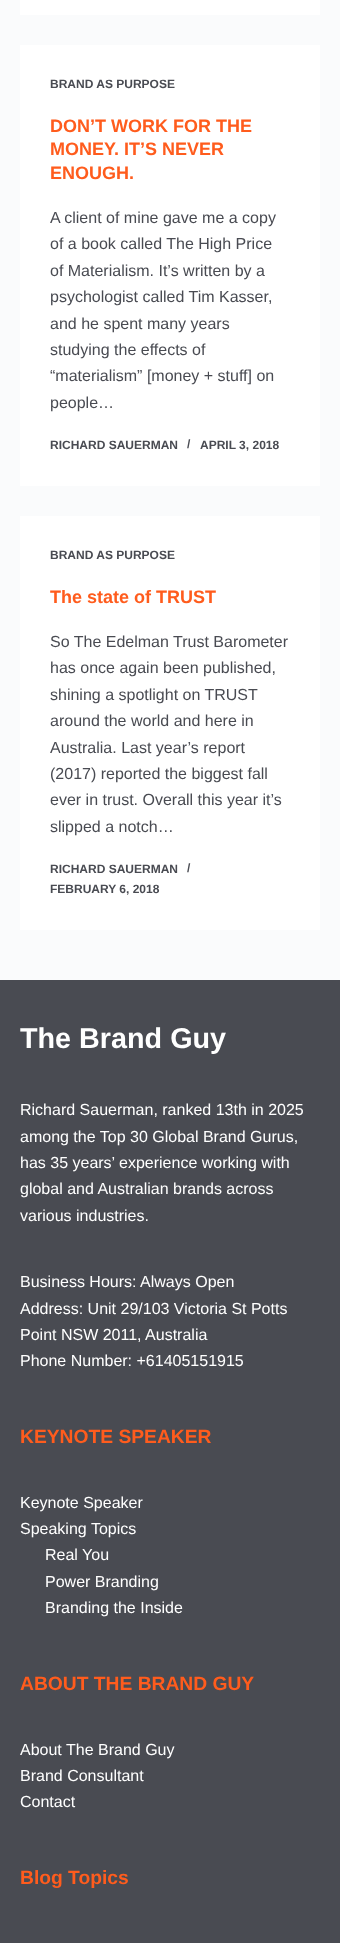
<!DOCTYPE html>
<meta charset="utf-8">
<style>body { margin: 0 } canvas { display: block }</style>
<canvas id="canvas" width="340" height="1943"></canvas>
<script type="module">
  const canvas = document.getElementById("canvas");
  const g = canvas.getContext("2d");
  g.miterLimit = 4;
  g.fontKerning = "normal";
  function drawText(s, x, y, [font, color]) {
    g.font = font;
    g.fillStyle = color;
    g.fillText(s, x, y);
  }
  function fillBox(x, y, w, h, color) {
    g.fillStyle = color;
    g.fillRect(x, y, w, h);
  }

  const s1 = ["bold 12px Liberation Sans", "#494B52"];
  const s2 = ["bold 18px Liberation Sans", "#FF5C1D"];
  const s3 = ["16px Liberation Sans", "#494B52"];
  const s4 = ["bold 28.75px Liberation Sans", "#FFFFFF"];
  const s5 = ["16px Liberation Sans", "#FFFFFF"];
  const s6 = ["bold 19.25px Liberation Sans", "#FF5C1D"];

  fillBox(0, 0, 340, 1943, "#FAFBFC");
  fillBox(20, 0, 300, 15, "#FFFFFF");
  fillBox(20, 45, 300, 441, "#FFFFFF");
  drawText("BRAND AS PURPOSE", 50, 88, s1);
  drawText("DON’T WORK FOR THE", 50, 132, s2);
  drawText("MONEY. IT’S NEVER", 50, 155, s2);
  drawText("ENOUGH.", 50, 179, s2);
  drawText("A client of mine gave me a copy", 50, 223, s3);
  drawText("of a book called The High Price", 50, 249, s3);
  drawText("of Materialism. It’s written by a", 50, 276, s3);
  drawText("psychologist called Tim Kasser,", 50, 302, s3);
  drawText("and he spent many years", 50, 329, s3);
  drawText("studying the effects of", 50, 355, s3);
  drawText("“materialism” [money + stuff] on", 50, 381, s3);
  drawText("people…", 50, 408, s3);
  drawText("RICHARD SAUERMAN", 50, 449, s1);
  drawText("/", 187, 448, s1);
  drawText("APRIL 3, 2018", 200, 449, s1);
  fillBox(20, 516, 300, 414, "#FFFFFF");
  drawText("BRAND AS PURPOSE", 50, 559, s1);
  drawText("The state of TRUST", 50, 603, s2);
  drawText("So The Edelman Trust Barometer", 50, 647, s3);
  drawText("has once again been published,", 50, 673, s3);
  drawText("shining a spotlight on TRUST", 50, 700, s3);
  drawText("around the world and here in", 50, 726, s3);
  drawText("Australia. Last year’s report", 50, 753, s3);
  drawText("(2017) reported the biggest fall", 50, 779, s3);
  drawText("ever in trust. Overall this year it’s", 50, 805, s3);
  drawText("slipped a notch…", 50, 832, s3);
  drawText("RICHARD SAUERMAN", 50, 873, s1);
  drawText("/", 187, 872, s1);
  drawText("FEBRUARY 6, 2018", 50, 893, s1);
  fillBox(0, 980, 340, 963, "#494B52");
  drawText("The Brand Guy", 20, 1048, s4);
  drawText("Richard Sauerman, ranked 13th in 2025", 20, 1115, s5);
  drawText("among the Top 30 Global Brand Gurus,", 20, 1142, s5);
  drawText("has 35 years’ experience working with", 20, 1168, s5);
  drawText("global and Australian brands across", 20, 1194, s5);
  drawText("various industries.", 20, 1221, s5);
  drawText("Business Hours: Always Open", 20, 1287, s5);
  drawText("Address: Unit 29/103 Victoria St Potts", 20, 1314, s5);
  drawText("Point NSW 2011, Australia", 20, 1340, s5);
  drawText("Phone Number: +61405151915", 20, 1366, s5);
  drawText("KEYNOTE SPEAKER", 20, 1443, s6);
  drawText("Keynote Speaker", 20, 1508, s5);
  drawText("Speaking Topics", 20, 1534, s5);
  drawText("Real You", 45, 1560, s5);
  drawText("Power Branding", 45, 1587, s5);
  drawText("Branding the Inside", 45, 1613, s5);
  drawText("ABOUT THE BRAND GUY", 20, 1690, s6);
  drawText("About The Brand Guy", 20, 1755, s5);
  drawText("Brand Consultant", 20, 1781, s5);
  drawText("Contact", 20, 1807, s5);
  drawText("Blog Topics", 20, 1884, s6);
</script>
